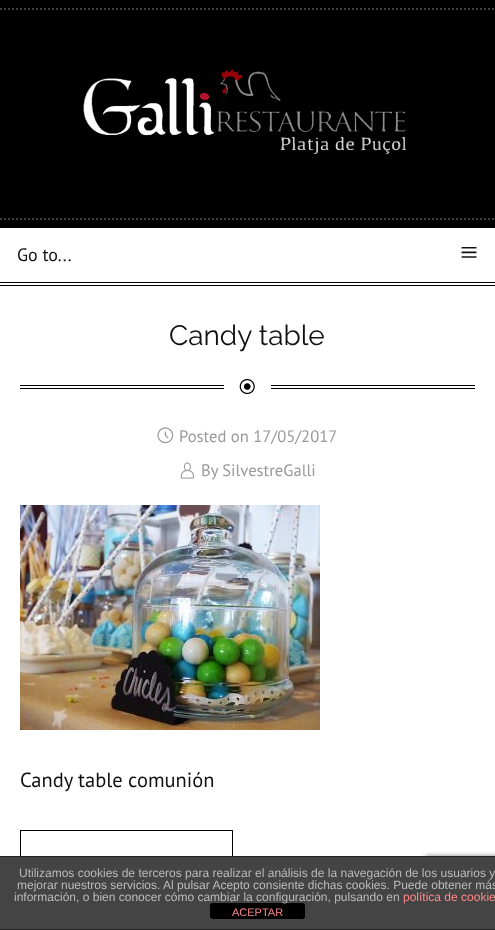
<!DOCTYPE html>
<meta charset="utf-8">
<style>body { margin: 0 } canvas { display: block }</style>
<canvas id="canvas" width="495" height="930"></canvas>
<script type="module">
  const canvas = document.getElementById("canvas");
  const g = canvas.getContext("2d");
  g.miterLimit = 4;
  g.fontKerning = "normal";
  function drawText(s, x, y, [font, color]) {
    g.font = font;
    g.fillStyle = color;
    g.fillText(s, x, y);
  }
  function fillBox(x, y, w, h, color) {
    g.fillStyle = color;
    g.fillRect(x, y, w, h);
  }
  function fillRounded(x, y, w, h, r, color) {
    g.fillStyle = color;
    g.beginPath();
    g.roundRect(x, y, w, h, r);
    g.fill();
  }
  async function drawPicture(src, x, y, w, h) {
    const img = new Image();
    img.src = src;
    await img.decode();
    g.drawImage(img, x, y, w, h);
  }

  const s1 = ["18px PT Sans", "#111111"];
  const s2 = ["32px Liberation Serif", "#111111"];
  const s3 = ["100 28px Raleway", "#111111"];
  const s4 = ["16.6px PT Sans", "#999999"];
  const s5 = ["20.5px PT Sans", "#111111"];
  const s6 = ["12px Liberation Sans", "#BBBBBB"];
  const s7 = ["12px Liberation Sans", "#FF8888"];
  const s8 = ["11px Liberation Sans", "#FF8888"];

  fillBox(0, 0, 495, 930, "#FFFFFF");
  fillBox(0, 0, 495, 228, "#000000");
  g.beginPath();
  g.moveTo(0, 9);
  g.lineTo(495, 9);
  g.strokeStyle = "#404040";
  g.lineWidth = 2;
  g.setLineDash([2, 2]);
  g.stroke();
  await drawPicture("pic1.png", 83, 69, 324, 85);
  g.beginPath();
  g.moveTo(0, 219);
  g.lineTo(495, 219);
  g.stroke();
  fillBox(0, 285, 495, 1, "#000000");
  fillBox(0, 282, 495, 1, "#000000");
  drawText("Go to...", 17, 261, s1);
  drawText("≡", 460, 263, s2);
  drawText("Candy table", 169, 345, s3);
  fillBox(20, 385, 455, 1, "#000000");
  fillBox(20, 388, 455, 1, "#000000");
  fillBox(224, 385, 47, 4, "#FFFFFF");
  await drawPicture("pic2.png", 239, 379, 16, 16);
  await drawPicture("pic3.png", 157, 427, 17, 17);
  drawText("Posted on 17/05/2017", 179, 442, s4);
  await drawPicture("pic4.png", 180, 462, 14, 17);
  drawText("By SilvestreGalli", 201, 476, s4);
  await drawPicture("pic5.png", 20, 505, 300, 225);
  drawText("Candy table comunión", 20, 787, s5);
  g.strokeStyle = "#000000";
  g.lineWidth = 1;
  g.setLineDash([]);
  g.strokeRect(20.5, 830.5, 212, 49);
  g.fillStyle = "#808080";
  g.filter = "blur(2.5px)";
  g.beginPath();
  g.roundRect(425, 856, 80, 60, 2);
  g.fill();
  g.filter = "none";
  fillBox(0, 857, 495, 72, "#444444");
  fillBox(0, 856, 495, 1, "#222222");
  fillBox(0, 929, 495, 1, "#222222");
  drawText("Utilizamos cookies de terceros para realizar el análisis de la navegación de los usuarios y", 19, 877, s6);
  drawText("mejorar nuestros servicios. Al pulsar Acepto consiente dichas cookies. Puede obtener más", 17, 889, s6);
  fillRounded(210, 903, 95, 16, 3, "#000000");
  drawText("información, o bien conocer cómo cambiar la configuración, pulsando en", 14, 901, s6);
  drawText("política de cookie", 403, 901, s7);
  drawText("ACEPTAR", 232, 916, s8);
</script>
